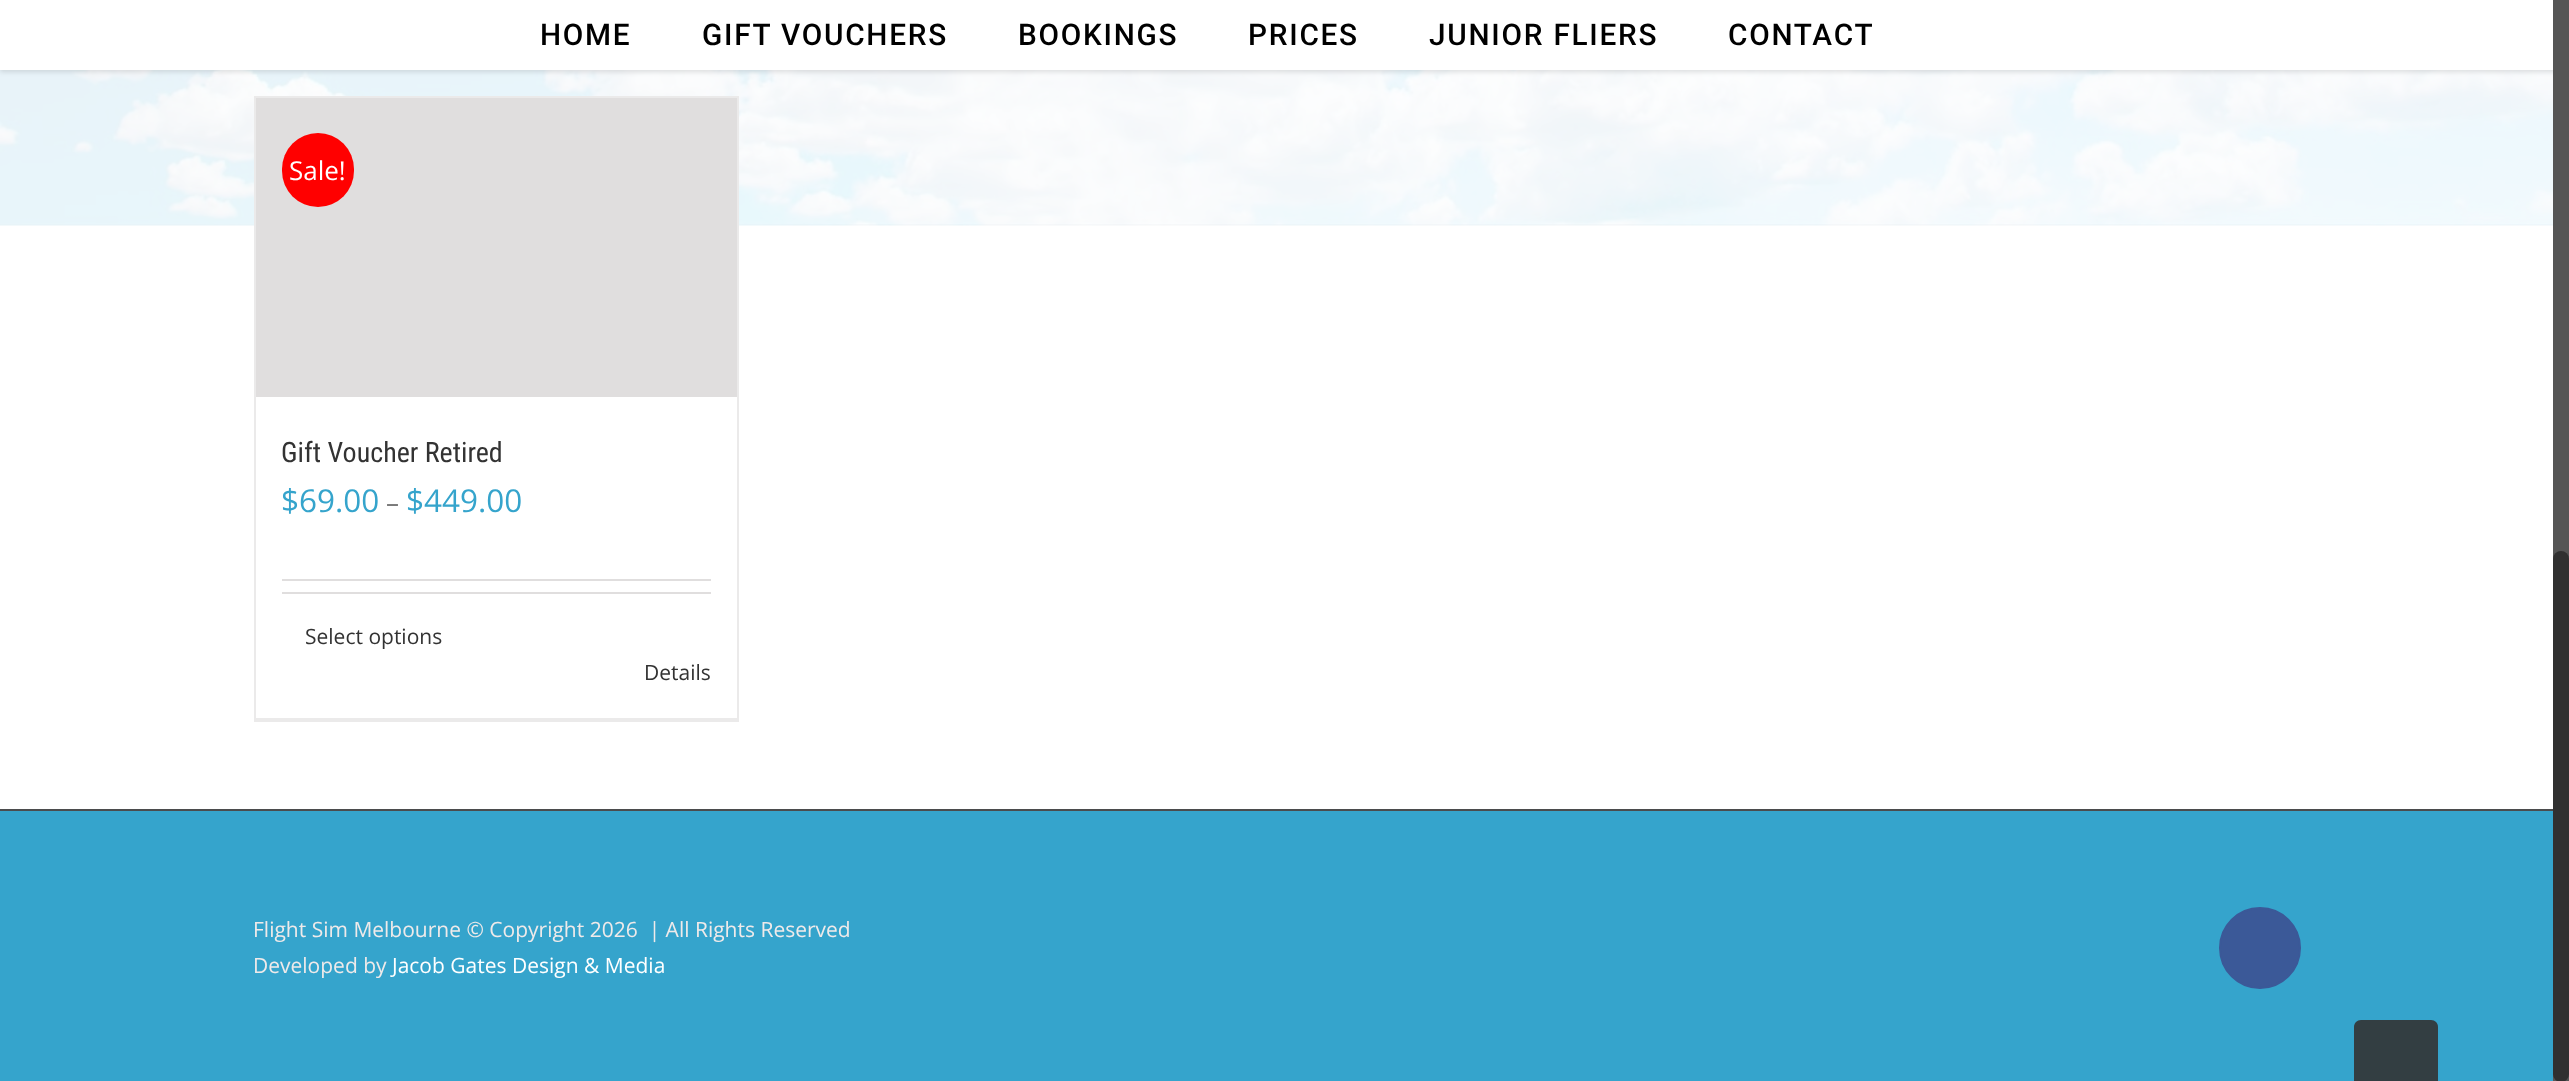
<!DOCTYPE html>
<meta charset="utf-8">
<style>body { margin: 0 } canvas { display: block }</style>
<canvas id="canvas" width="2569" height="1081"></canvas>
<script type="module">
  const canvas = document.getElementById("canvas");
  const g = canvas.getContext("2d");
  g.miterLimit = 4;
  g.fontKerning = "normal";
  function drawText(s, x, y, [font, color]) {
    g.font = font;
    g.fillStyle = color;
    g.fillText(s, x, y);
  }
  function fillBox(x, y, w, h, color) {
    g.fillStyle = color;
    g.fillRect(x, y, w, h);
  }
  function fillRounded(x, y, w, h, r, color) {
    g.fillStyle = color;
    g.beginPath();
    g.roundRect(x, y, w, h, r);
    g.fill();
  }
  async function drawPicture(src, x, y, w, h) {
    const img = new Image();
    img.src = src;
    await img.decode();
    g.drawImage(img, x, y, w, h);
  }

  const s1 = ["500 29.75px Roboto", "#000000"];
  const s2 = ["26px Open Sans", "#FFFFFF"];
  const s3 = ["28px Roboto Condensed", "#333333"];
  const s4 = ["31.5px Open Sans", "#35A4CC"];
  const s5 = ["26px Open Sans", "#747474"];
  const s6 = ["21px Open Sans", "#333333"];
  const s7 = ["21px Open Sans", "#EFEAEA"];
  const s8 = ["21px Open Sans", "#FFFFFF"];

  fillBox(0, 0, 2569, 1081, "#FFFFFF");
  await drawPicture("pic1.png", 0, 70, 2553, 156);
  g.fillStyle = "rgba(0, 0, 0, 0.12)";
  g.filter = "blur(2.5px)";
  g.beginPath();
  g.rect(0, 2, 2569, 70);
  g.fill();
  g.filter = "none";
  fillBox(0, 0, 2553, 70, "#FFFFFF");
  g.letterSpacing = "1.75px";
  drawText("HOME", 540, 45, s1);
  drawText("GIFT VOUCHERS", 702, 45, s1);
  drawText("BOOKINGS", 1018, 45, s1);
  drawText("PRICES", 1248, 45, s1);
  drawText("JUNIOR FLIERS", 1429, 45, s1);
  drawText("CONTACT", 1728, 45, s1);
  fillBox(254, 96, 485, 2, "#EBEAEA");
  fillBox(737, 96, 2, 625, "#EBEAEA");
  fillBox(254, 718, 485, 4, "#EBEAEA");
  fillBox(254, 96, 2, 625, "#EBEAEA");
  fillBox(256, 98, 481, 299, "#E0DEDE");
  fillRounded(282, 133, 72, 74, 36, "#FF0000");
  g.letterSpacing = "0px";
  drawText("Sale!", 289, 180, s2);
  drawText("Gift Voucher Retired", 281, 462, s3);
  drawText("$69.00", 281, 512, s4);
  drawText("–", 386, 512, s5);
  drawText("$449.00", 406, 512, s4);
  fillBox(282, 579, 429, 2, "#E0DEDE");
  fillBox(282, 592, 429, 2, "#E0DEDE");
  drawText("Select options", 305, 644, s6);
  drawText("Details", 644, 680, s6);
  fillBox(0, 811, 2553, 270, "#35A4CC");
  fillBox(0, 809, 2553, 2, "#4B4C4D");
  drawText("Flight Sim Melbourne © Copyright 2026  | All Rights Reserved", 253, 937, s7);
  drawText("Developed by", 253, 973, s7);
  drawText("Jacob Gates Design & Media", 392, 973, s8);
  g.fillStyle = "#3B5998";
  g.beginPath();
  g.arc(2260, 948, 40, 0, Math.PI * 2);
  g.fill();
  g.strokeStyle = "#3B5998";
  g.lineWidth = 2;
  g.stroke();
  fillBox(2553, 0, 16, 1081, "#555555");
  fillRounded(2553, 551, 16, 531, 8, "#303030");
  g.fillStyle = "#333E42";
  g.beginPath();
  g.moveTo(2361, 1020);
  g.lineTo(2431, 1020);
  g.bezierCurveTo(2435, 1020, 2438, 1023, 2438, 1027);
  g.lineTo(2438, 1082);
  g.lineTo(2354, 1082);
  g.lineTo(2354, 1027);
  g.bezierCurveTo(2354, 1023, 2357, 1020, 2361, 1020);
  g.closePath();
  g.fill();
</script>
